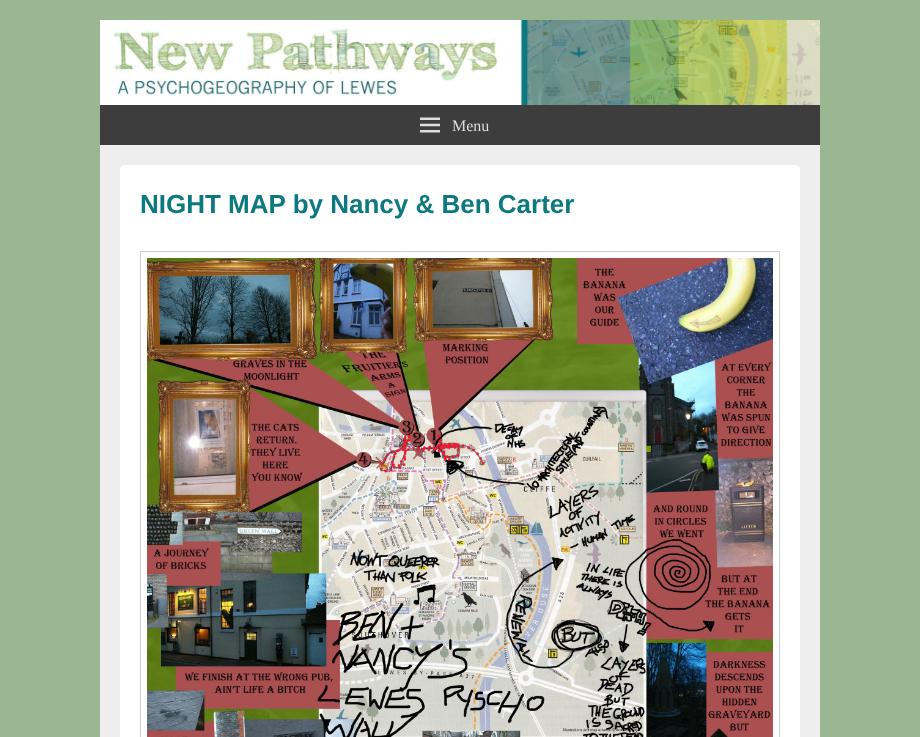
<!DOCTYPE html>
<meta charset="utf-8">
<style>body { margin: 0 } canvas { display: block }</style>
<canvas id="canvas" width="920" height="737"></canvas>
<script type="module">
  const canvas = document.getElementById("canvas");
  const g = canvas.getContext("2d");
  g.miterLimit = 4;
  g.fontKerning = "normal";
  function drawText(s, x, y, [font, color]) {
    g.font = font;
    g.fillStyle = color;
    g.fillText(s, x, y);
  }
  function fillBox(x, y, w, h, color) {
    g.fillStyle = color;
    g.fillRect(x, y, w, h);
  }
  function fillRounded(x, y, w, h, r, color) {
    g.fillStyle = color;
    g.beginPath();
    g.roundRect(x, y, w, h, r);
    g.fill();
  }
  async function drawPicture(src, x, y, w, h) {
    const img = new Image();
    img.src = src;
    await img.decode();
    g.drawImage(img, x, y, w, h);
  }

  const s1 = ["16px Liberation Serif", "#DDDDDD"];
  const s2 = ["bold 26px Liberation Sans", "#0C7980"];

  fillBox(0, 0, 920, 737, "#9BB791");
  fillBox(100, 145, 720, 592, "#EEEEEE");
  await drawPicture("pic1.png", 100, 20, 720, 85);
  fillBox(100, 105, 720, 40, "#3D3D3D");
  await drawPicture("pic2.png", 420, 117, 20, 16);
  drawText("Menu", 452, 131, s1);
  fillRounded(120, 165, 680, 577, 5, "#FFFFFF");
  drawText("NIGHT MAP by Nancy & Ben Carter", 140, 213, s2);
  g.strokeStyle = "#CCCCCC";
  g.strokeRect(140.5, 251.5, 639, 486);
  await drawPicture("pic3.png", 147, 258, 626, 479);
</script>
